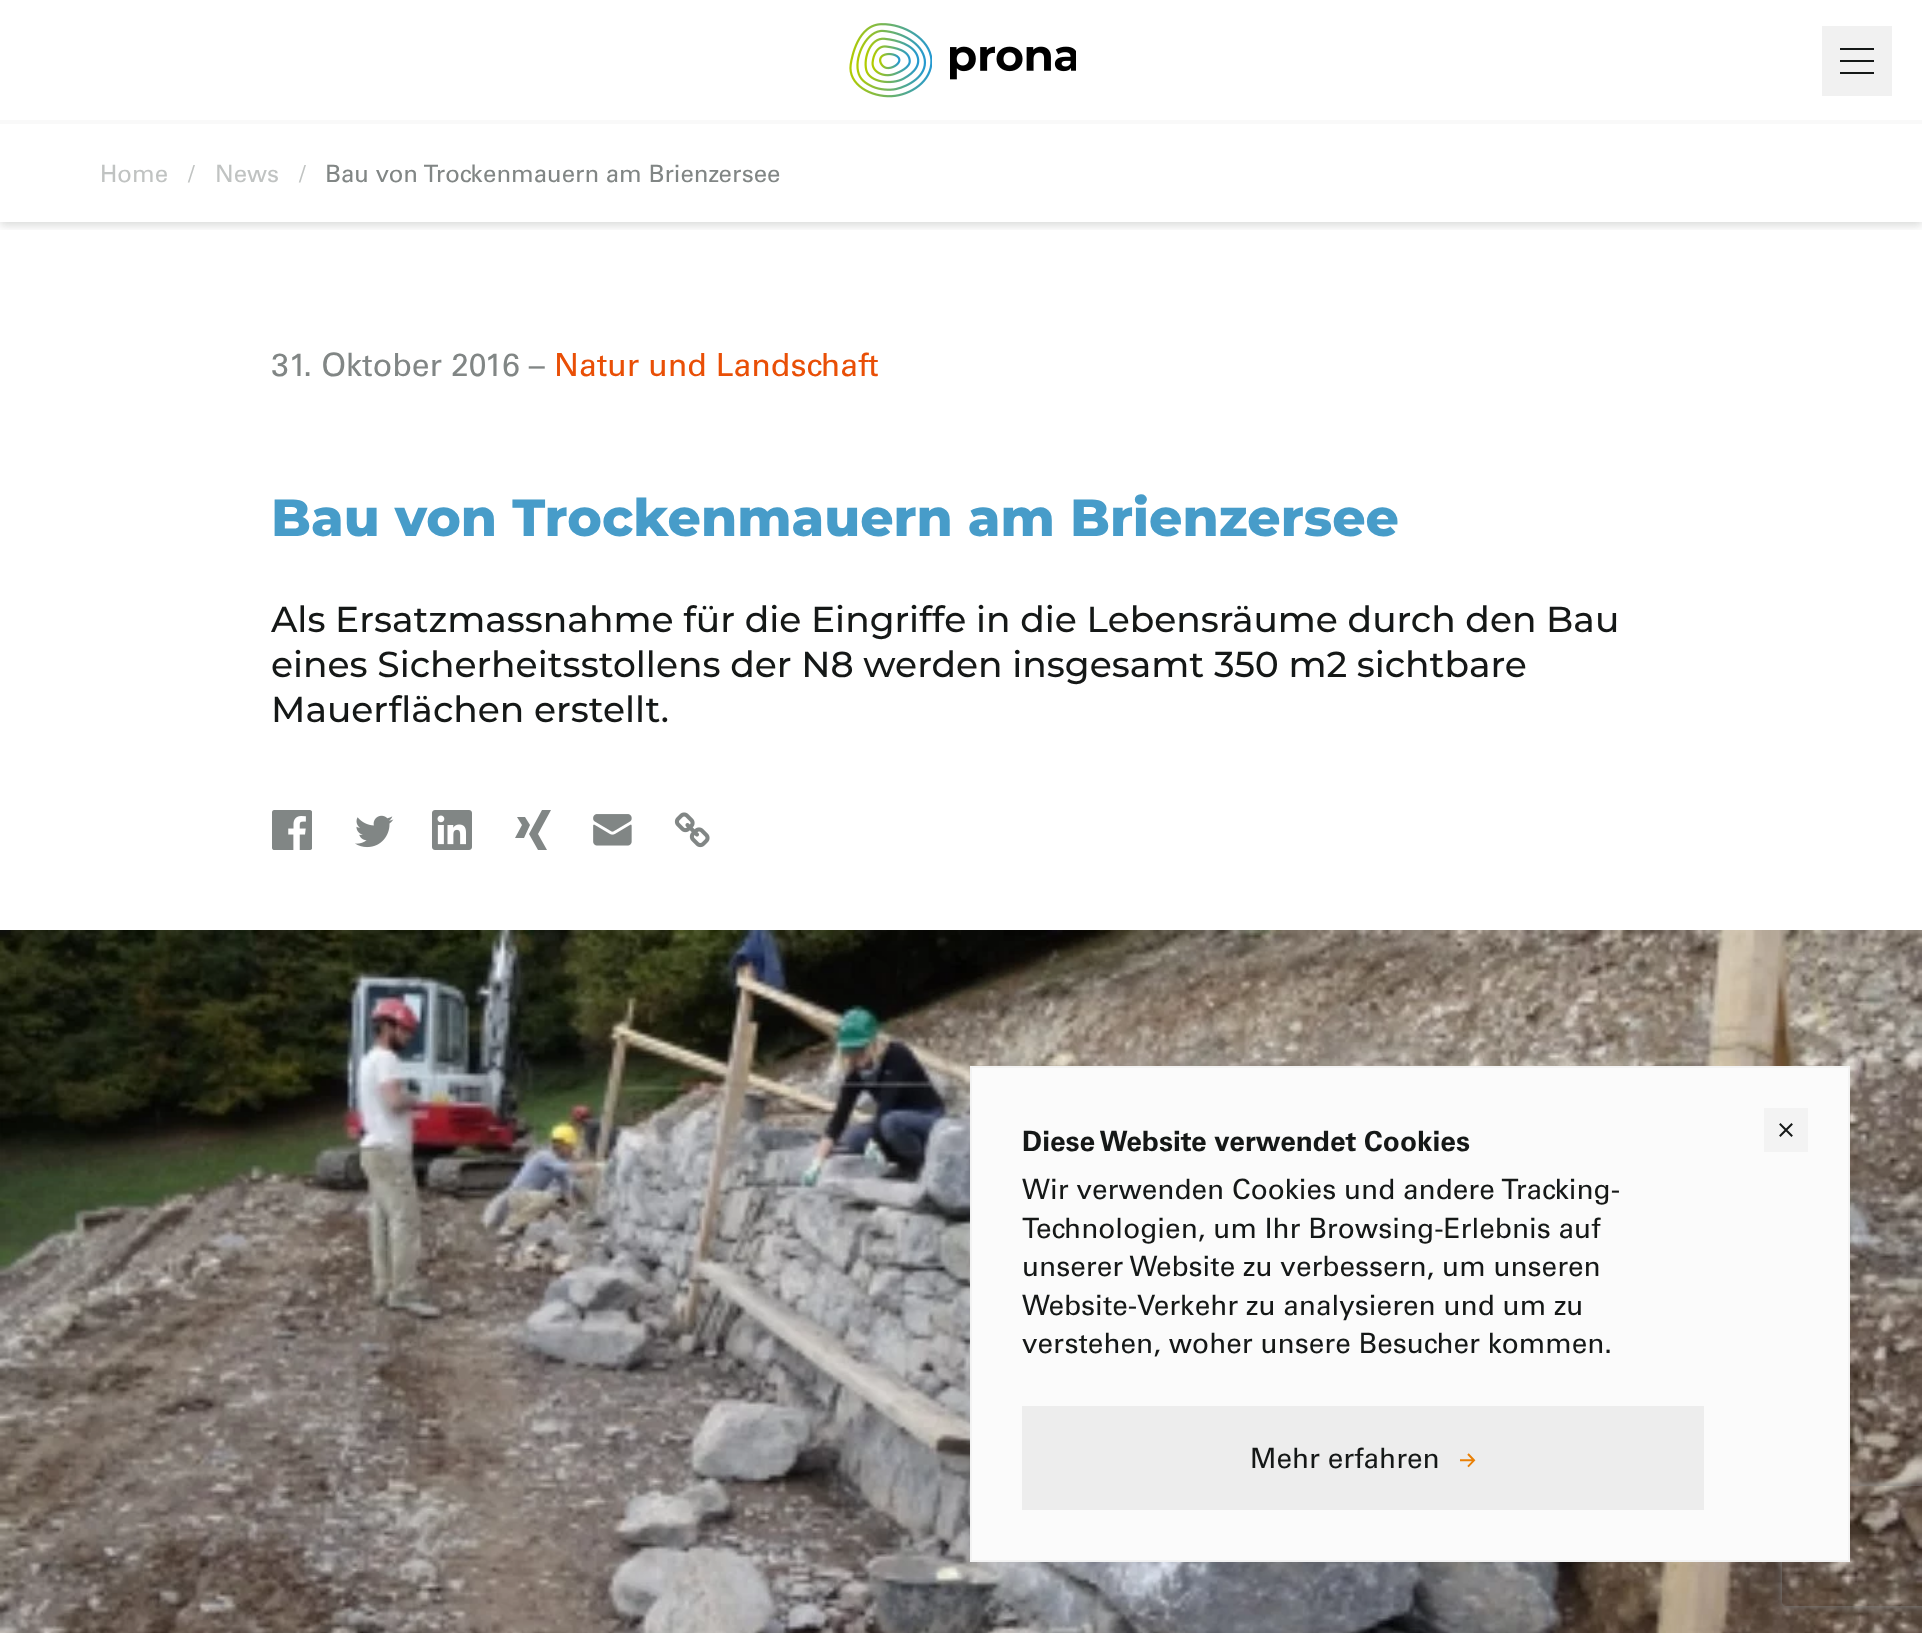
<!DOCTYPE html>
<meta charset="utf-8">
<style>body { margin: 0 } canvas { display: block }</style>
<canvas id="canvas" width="1922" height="1633"></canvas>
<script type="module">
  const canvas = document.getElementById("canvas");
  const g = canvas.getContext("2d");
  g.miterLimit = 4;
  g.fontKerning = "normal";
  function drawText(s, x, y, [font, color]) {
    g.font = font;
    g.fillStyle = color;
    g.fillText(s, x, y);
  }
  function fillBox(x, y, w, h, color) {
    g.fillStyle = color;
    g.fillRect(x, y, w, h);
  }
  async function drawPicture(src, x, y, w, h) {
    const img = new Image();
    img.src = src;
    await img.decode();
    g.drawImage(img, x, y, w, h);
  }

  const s1 = ["24px Univers", "#C0C3C2"];
  const s2 = ["24px Univers", "#818685"];
  const s3 = ["32px Univers", "#818685"];
  const s4 = ["32px Univers", "#E94F06"];
  const s5 = ["800 52px Montserrat", "#479CC9"];
  const s6 = ["500 36px Montserrat", "#151817"];
  const s7 = ["bold 28px Univers", "#151817"];
  const s8 = ["28px Univers", "#151817"];

  fillBox(0, 0, 1922, 1633, "#FFFFFF");
  g.save();
  g.beginPath();
  g.rect(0, 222, 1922, 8);
  g.clip();
  g.fillStyle = "rgba(21, 24, 23, 0.15)";
  g.filter = "blur(4px)";
  g.beginPath();
  g.rect(0, 124, 1922, 102);
  g.fill();
  g.filter = "none";
  g.restore();
  fillBox(1, 118, 1920, 2, "#FFFFFF");
  await drawPicture("pic1.png", 849, 23, 83, 75);
  await drawPicture("pic2.png", 950, 46, 126, 34);
  fillBox(1822, 26, 70, 70, "#F1F1F1");
  fillBox(1840, 48, 34, 2, "#151817");
  fillBox(1840, 60, 34, 2, "#151817");
  fillBox(1840, 72, 34, 2, "#151817");
  fillBox(0, 120, 1922, 4, "#F9F9F9");
  drawText("Home", 100, 182, s1);
  drawText("/", 188, 182, s1);
  drawText("News", 215, 182, s1);
  drawText("/", 299, 182, s1);
  drawText("Bau von Trockenmauern am Brienzersee", 325, 182, s2);
  drawText("31. Oktober 2016 –", 271, 376, s3);
  drawText("Natur und Landschaft", 554, 376, s4);
  drawText("Bau von Trockenmauern am Brienzersee", 271, 536, s5);
  drawText("Als Ersatzmassnahme für die Eingriffe in die Lebensräume durch den Bau", 271, 632, s6);
  drawText("eines Sicherheitsstollens der N8 werden insgesamt 350 m2 sichtbare", 271, 677, s6);
  drawText("Mauerflächen erstellt.", 271, 722, s6);
  await drawPicture("pic3.png", 272, 810, 40, 40);
  await drawPicture("pic4.png", 355, 815, 39, 33);
  await drawPicture("pic5.png", 432, 810, 40, 40);
  g.fillStyle = "#818685";
  g.beginPath();
  g.moveTo(517, 817);
  g.lineTo(525, 817);
  g.lineTo(530, 825);
  g.lineTo(524, 838);
  g.lineTo(515, 838);
  g.lineTo(522, 825);
  g.closePath();
  g.moveTo(542, 810);
  g.lineTo(551, 810);
  g.lineTo(538, 834);
  g.lineTo(547, 850);
  g.lineTo(538, 850);
  g.lineTo(529, 834);
  g.closePath();
  g.fill();
  await drawPicture("pic6.png", 593, 814, 39, 32);
  await drawPicture("pic7.png", 674, 812, 36, 36);
  await drawPicture("pic8.png", 0, 930, 1922, 703);
  g.save();
  g.beginPath();
  g.moveTo(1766, 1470);
  g.lineTo(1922, 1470);
  g.lineTo(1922, 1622);
  g.lineTo(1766, 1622);
  g.closePath();
  g.moveTo(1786, 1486);
  g.lineTo(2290, 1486);
  g.bezierCurveTo(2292, 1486, 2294, 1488, 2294, 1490);
  g.lineTo(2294, 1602);
  g.bezierCurveTo(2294, 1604, 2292, 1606, 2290, 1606);
  g.lineTo(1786, 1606);
  g.bezierCurveTo(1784, 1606, 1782, 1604, 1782, 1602);
  g.lineTo(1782, 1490);
  g.bezierCurveTo(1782, 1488, 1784, 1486, 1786, 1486);
  g.closePath();
  g.clip("evenodd");
  g.fillStyle = "#808080";
  g.filter = "blur(5px)";
  g.beginPath();
  g.roundRect(1782, 1486, 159, 120, 4);
  g.fill();
  g.filter = "none";
  g.restore();
  g.fillStyle = "#FBFBFB";
  g.beginPath();
  g.rect(971, 1067, 878, 494);
  g.fill();
  g.strokeStyle = "#F3F3F3";
  g.lineWidth = 2;
  g.stroke();
  drawText("Diese Website verwendet Cookies", 1022, 1151, s7);
  drawText("Wir verwenden Cookies und andere Tracking-", 1022, 1199, s8);
  drawText("Technologien, um Ihr Browsing-Erlebnis auf", 1022, 1238, s8);
  drawText("unserer Website zu verbessern, um unseren", 1022, 1276, s8);
  drawText("Website-Verkehr zu analysieren und um zu", 1022, 1315, s8);
  drawText("verstehen, woher unsere Besucher kommen.", 1022, 1353, s8);
  fillBox(1022, 1406, 682, 104, "#EDEDED");
  drawText("Mehr erfahren", 1250, 1468, s8);
  await drawPicture("pic9.png", 1460, 1453, 16, 15);
  fillBox(1764, 1108, 44, 44, "#F3F3F3");
  g.beginPath();
  g.moveTo(1791.5, 1124.5);
  g.lineTo(1780.5, 1135.5);
  g.moveTo(1780.5, 1124.5);
  g.lineTo(1791.5, 1135.5);
  g.strokeStyle = "#151817";
  g.lineCap = "square";
  g.stroke();
</script>
